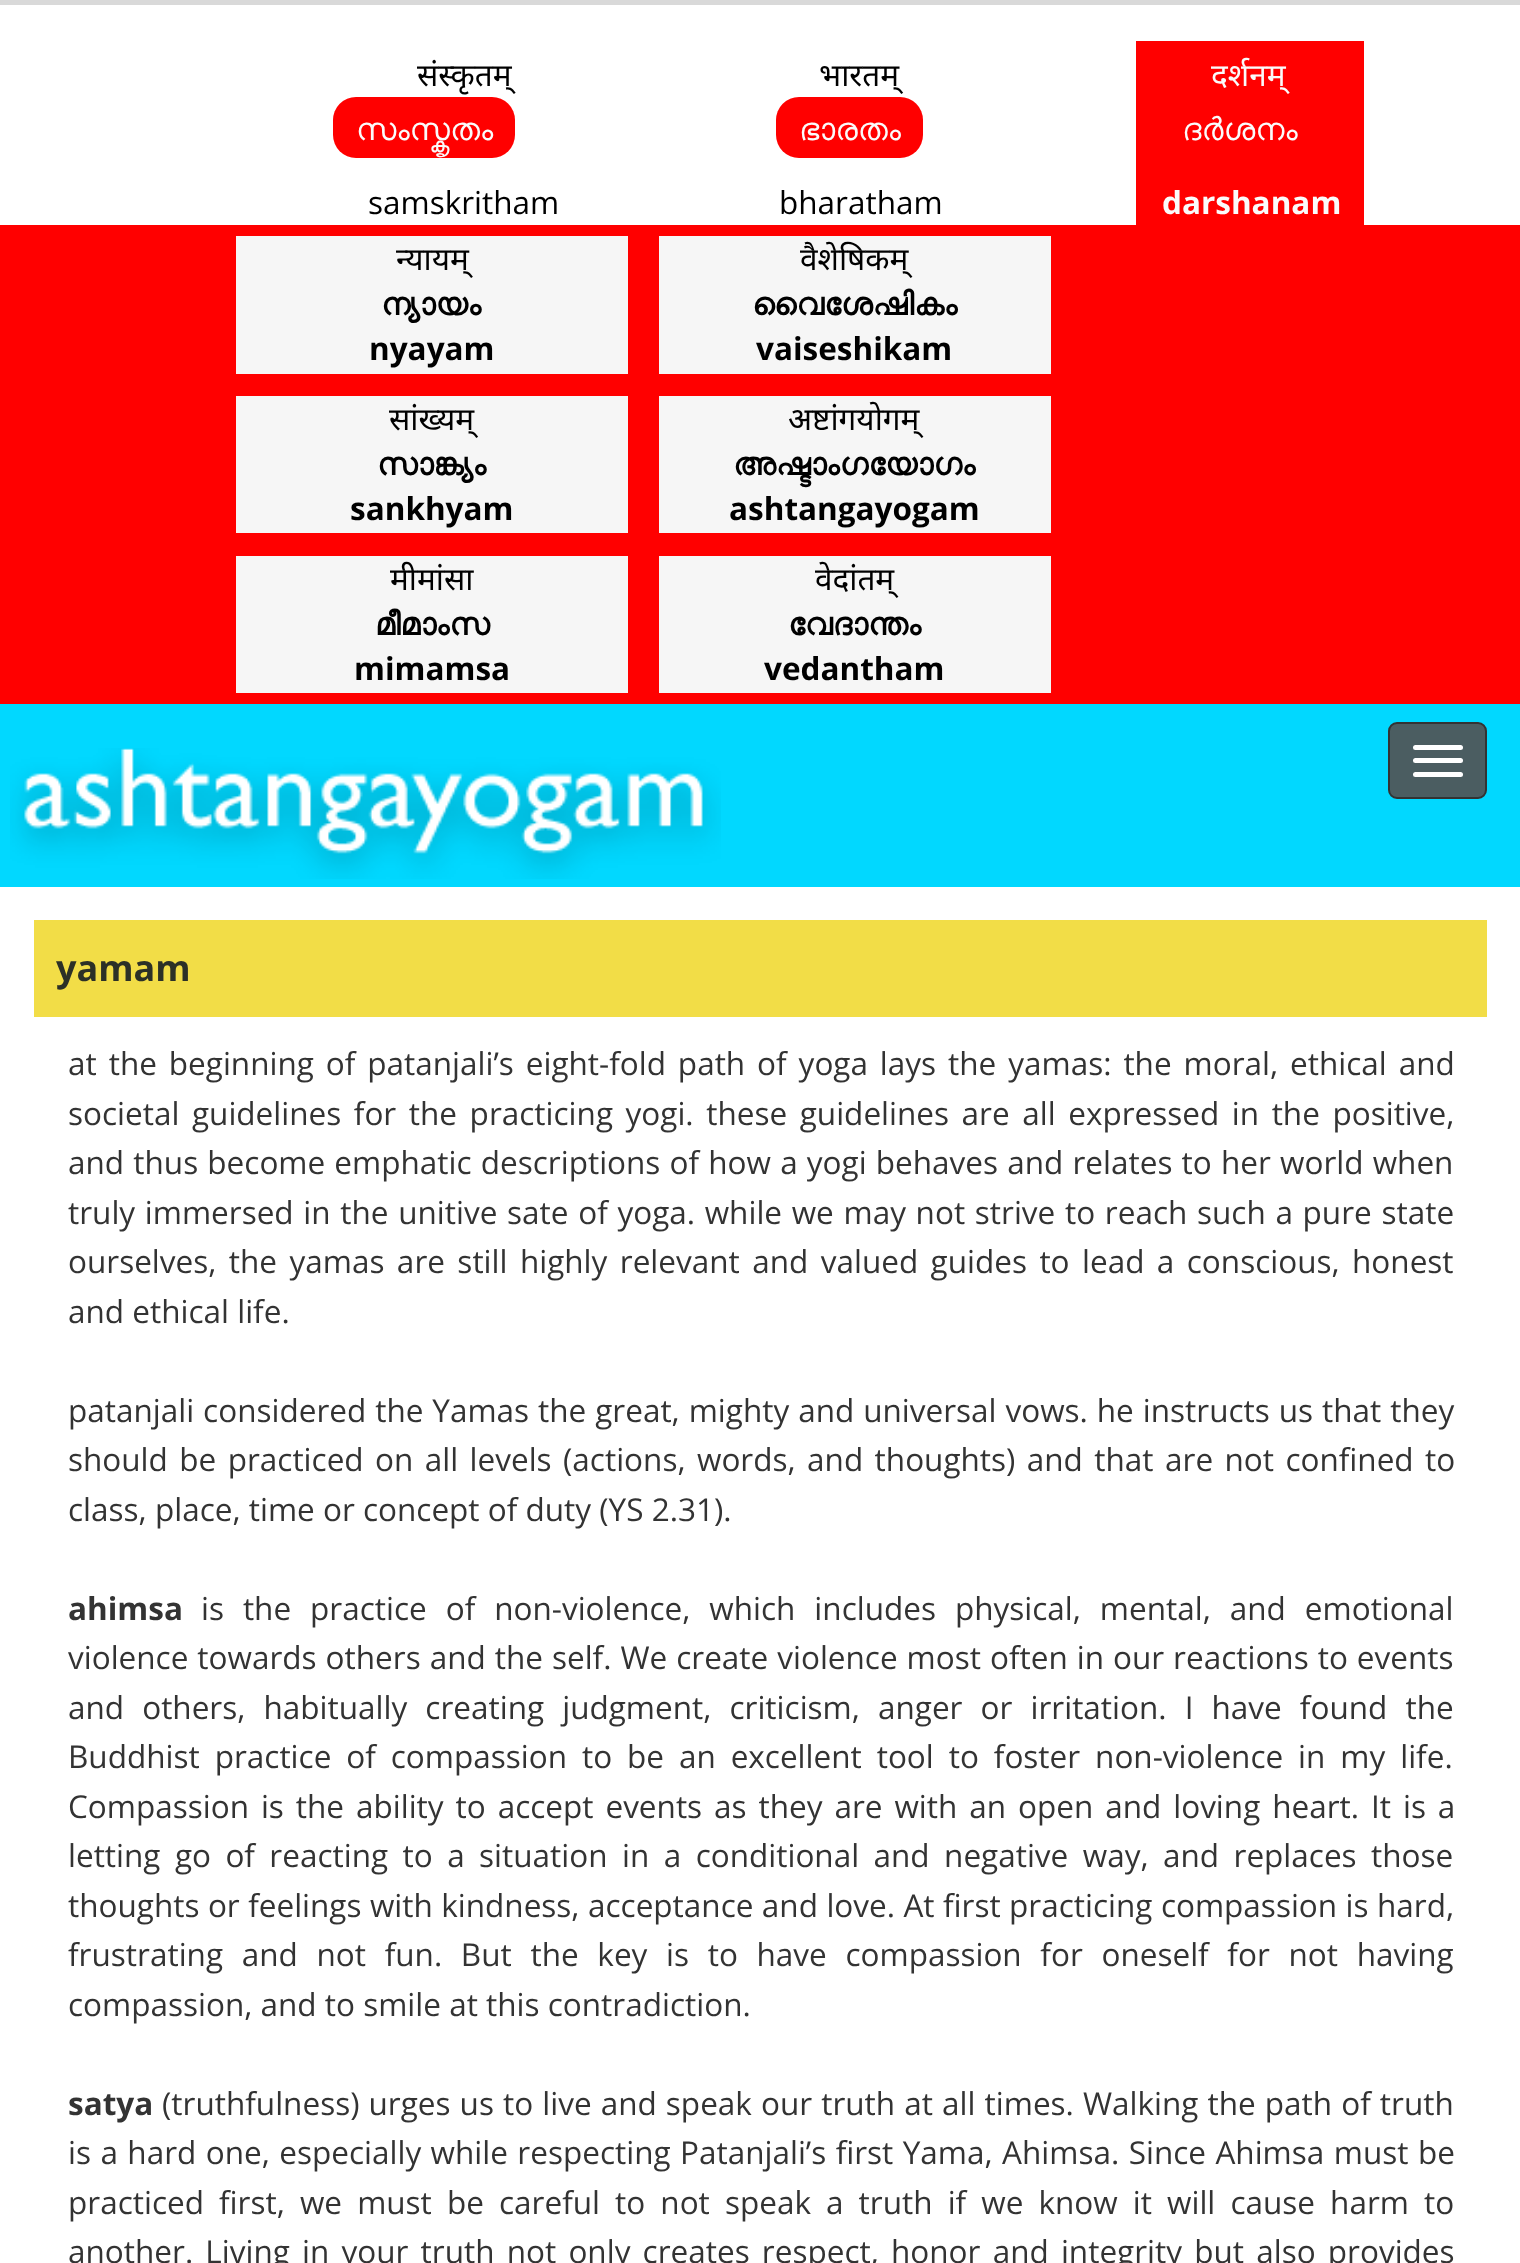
<!DOCTYPE html>
<meta charset="utf-8">
<style>body { margin: 0 } canvas { display: block }</style>
<canvas id="canvas" width="1520" height="2263"></canvas>
<script type="module">
  const canvas = document.getElementById("canvas");
  const g = canvas.getContext("2d");
  g.miterLimit = 4;
  g.fontKerning = "normal";
  function drawText(s, x, y, [font, color]) {
    g.font = font;
    g.fillStyle = color;
    g.fillText(s, x, y);
  }
  function fillBox(x, y, w, h, color) {
    g.fillStyle = color;
    g.fillRect(x, y, w, h);
  }
  function fillRounded(x, y, w, h, r, color) {
    g.fillStyle = color;
    g.beginPath();
    g.roundRect(x, y, w, h, r);
    g.fill();
  }
  async function drawPicture(src, x, y, w, h) {
    const img = new Image();
    img.src = src;
    await img.decode();
    g.drawImage(img, x, y, w, h);
  }

  const s1 = ["31.5px Noto Sans", "#000000"];
  const s2 = ["31.5px FreeSans", "#FBFBFB"];
  const s3 = ["31.5px Open Sans", "#000000"];
  const s4 = ["31.5px Noto Sans", "#FBFBFB"];
  const s5 = ["bold 31.5px Open Sans", "#FBFBFB"];
  const s6 = ["bold 31.5px FreeSans", "#000000"];
  const s7 = ["bold 31.5px Open Sans", "#000000"];
  const s8 = ["bold 36px Open Sans", "#2C3027"];
  const s9 = ["31.5px Open Sans", "#333333"];
  const s10 = ["bold 31.5px Open Sans", "#333333"];

  fillBox(0, 0, 1520, 2263, "#FFFFFF");
  fillBox(0, 0, 1520, 5, "#D9D9D9");
  drawText("संस्कृतम्", 417, 86, s1);
  fillRounded(333, 97, 182, 61, 23, "#FF0000");
  drawText("സംസ്കൃതം", 356, 140, s2);
  drawText("samskritham", 368, 214, s3);
  drawText("भारतम्", 819, 86, s1);
  fillRounded(776, 97, 147, 61, 23, "#FF0000");
  drawText("ഭാരതം", 799, 140, s2);
  drawText("bharatham", 779, 214, s3);
  fillBox(1136, 41, 228, 184, "#FF0000");
  drawText("दर्शनम्", 1211, 86, s4);
  drawText("ദര്‍ശനം", 1182, 140, s2);
  drawText("darshanam", 1162, 214, s5);
  fillBox(0, 225, 1520, 479, "#FF0000");
  fillBox(236, 236, 392, 138, "#F6F6F6");
  drawText("न्यायम्", 396, 270, s1);
  drawText("ന്യായം", 381, 315, s6);
  drawText("nyayam", 369, 360, s7);
  fillBox(659, 236, 392, 138, "#F6F6F6");
  drawText("वैशेषिकम्", 800, 270, s1);
  drawText("വൈശേഷികം", 752, 315, s6);
  drawText("vaiseshikam", 756, 360, s7);
  fillBox(236, 396, 392, 137, "#F6F6F6");
  drawText("सांख्यम्", 389, 430, s1);
  drawText("സാങ്ക്യം", 377, 475, s6);
  drawText("sankhyam", 350, 520, s7);
  fillBox(659, 396, 392, 137, "#F6F6F6");
  drawText("अष्टांगयोगम्", 788, 430, s1);
  drawText("അഷ്ടാംഗയോഗം", 733, 475, s6);
  drawText("ashtangayogam", 729, 520, s7);
  fillBox(236, 556, 392, 137, "#F6F6F6");
  drawText("मीमांसा", 390, 590, s1);
  drawText("മീമാംസ", 375, 635, s6);
  drawText("mimamsa", 354, 680, s7);
  fillBox(659, 556, 392, 137, "#F6F6F6");
  drawText("वेदांतम्", 815, 590, s1);
  drawText("വേദാന്തം", 788, 635, s6);
  drawText("vedantham", 764, 680, s7);
  fillBox(0, 704, 1520, 183, "#01D8FF");
  await drawPicture("pic1.png", 10, 748, 711, 131);
  g.fillStyle = "#4B5D61";
  g.beginPath();
  g.roundRect(1389, 723, 97, 75, 8);
  g.fill();
  g.strokeStyle = "#333333";
  g.lineWidth = 2;
  g.stroke();
  fillRounded(1413, 745, 50, 5, 2.5, "#FFFFFF");
  fillRounded(1413, 758, 50, 5, 2.5, "#FFFFFF");
  fillRounded(1413, 772, 50, 5, 2.5, "#FFFFFF");
  fillBox(34, 920, 1453, 97, "#F2DD47");
  drawText("yamam", 56, 981, s8);
  g.wordSpacing = "3.75px";
  drawText("at the beginning of patanjali’s eight-fold path of yoga lays the yamas: the moral, ethical and", 68, 1075, s9);
  g.wordSpacing = "4.4px";
  drawText("societal guidelines for the practicing yogi. these guidelines are all expressed in the positive,", 68, 1125, s9);
  g.wordSpacing = "1px";
  drawText("and thus become emphatic descriptions of how a yogi behaves and relates to her world when", 68, 1174, s9);
  g.wordSpacing = "1.5px";
  drawText("truly immersed in the unitive sate of yoga. while we may not strive to reach such a pure state", 68, 1224, s9);
  g.wordSpacing = "4.25px";
  drawText("ourselves, the yamas are still highly relevant and valued guides to lead a conscious, honest", 68, 1273, s9);
  g.wordSpacing = "0px";
  drawText("and ethical life.", 68, 1323, s9);
  g.wordSpacing = "0.75px";
  drawText("patanjali considered the Yamas the great, mighty and universal vows. he instructs us that they", 68, 1422, s9);
  g.wordSpacing = "3.25px";
  drawText("should be practiced on all levels (actions, words, and thoughts) and that are not confined to", 68, 1471, s9);
  g.wordSpacing = "0px";
  drawText("class, place, time or concept of duty (YS 2.31).", 68, 1521, s9);
  drawText("ahimsa", 68, 1620, s10);
  g.wordSpacing = "10.75px";
  drawText("is the practice of non-violence, which includes physical, mental, and emotional", 201, 1620, s9);
  g.wordSpacing = "0.8px";
  drawText("violence towards others and the self. We create violence most often in our reactions to events", 68, 1669, s9);
  g.wordSpacing = "9.9px";
  drawText("and others, habitually creating judgment, criticism, anger or irritation. I have found the", 68, 1719, s9);
  g.wordSpacing = "6.75px";
  drawText("Buddhist practice of compassion to be an excellent tool to foster non-violence in my life.", 68, 1768, s9);
  g.wordSpacing = "3.75px";
  drawText("Compassion is the ability to accept events as they are with an open and loving heart. It is a", 68, 1818, s9);
  g.wordSpacing = "6.25px";
  drawText("letting go of reacting to a situation in a conditional and negative way, and replaces those", 68, 1867, s9);
  g.wordSpacing = "0.25px";
  drawText("thoughts or feelings with kindness, acceptance and love. At first practicing compassion is hard,", 68, 1917, s9);
  g.wordSpacing = "10.5px";
  drawText("frustrating and not fun. But the key is to have compassion for oneself for not having", 68, 1966, s9);
  g.wordSpacing = "0px";
  drawText("compassion, and to smile at this contradiction.", 68, 2016, s9);
  drawText("satya", 68, 2115, s10);
  g.wordSpacing = "0.9px";
  drawText("(truthfulness) urges us to live and speak our truth at all times. Walking the path of truth", 162, 2115, s9);
  g.wordSpacing = "1.25px";
  drawText("is a hard one, especially while respecting Patanjali’s first Yama, Ahimsa. Since Ahimsa must be", 68, 2164, s9);
  g.wordSpacing = "6.9px";
  drawText("practiced first, we must be careful to not speak a truth if we know it will cause harm to", 68, 2214, s9);
  g.wordSpacing = "4px";
  drawText("another. Living in your truth not only creates respect, honor and integrity but also provides", 68, 2263, s9);
</script>
